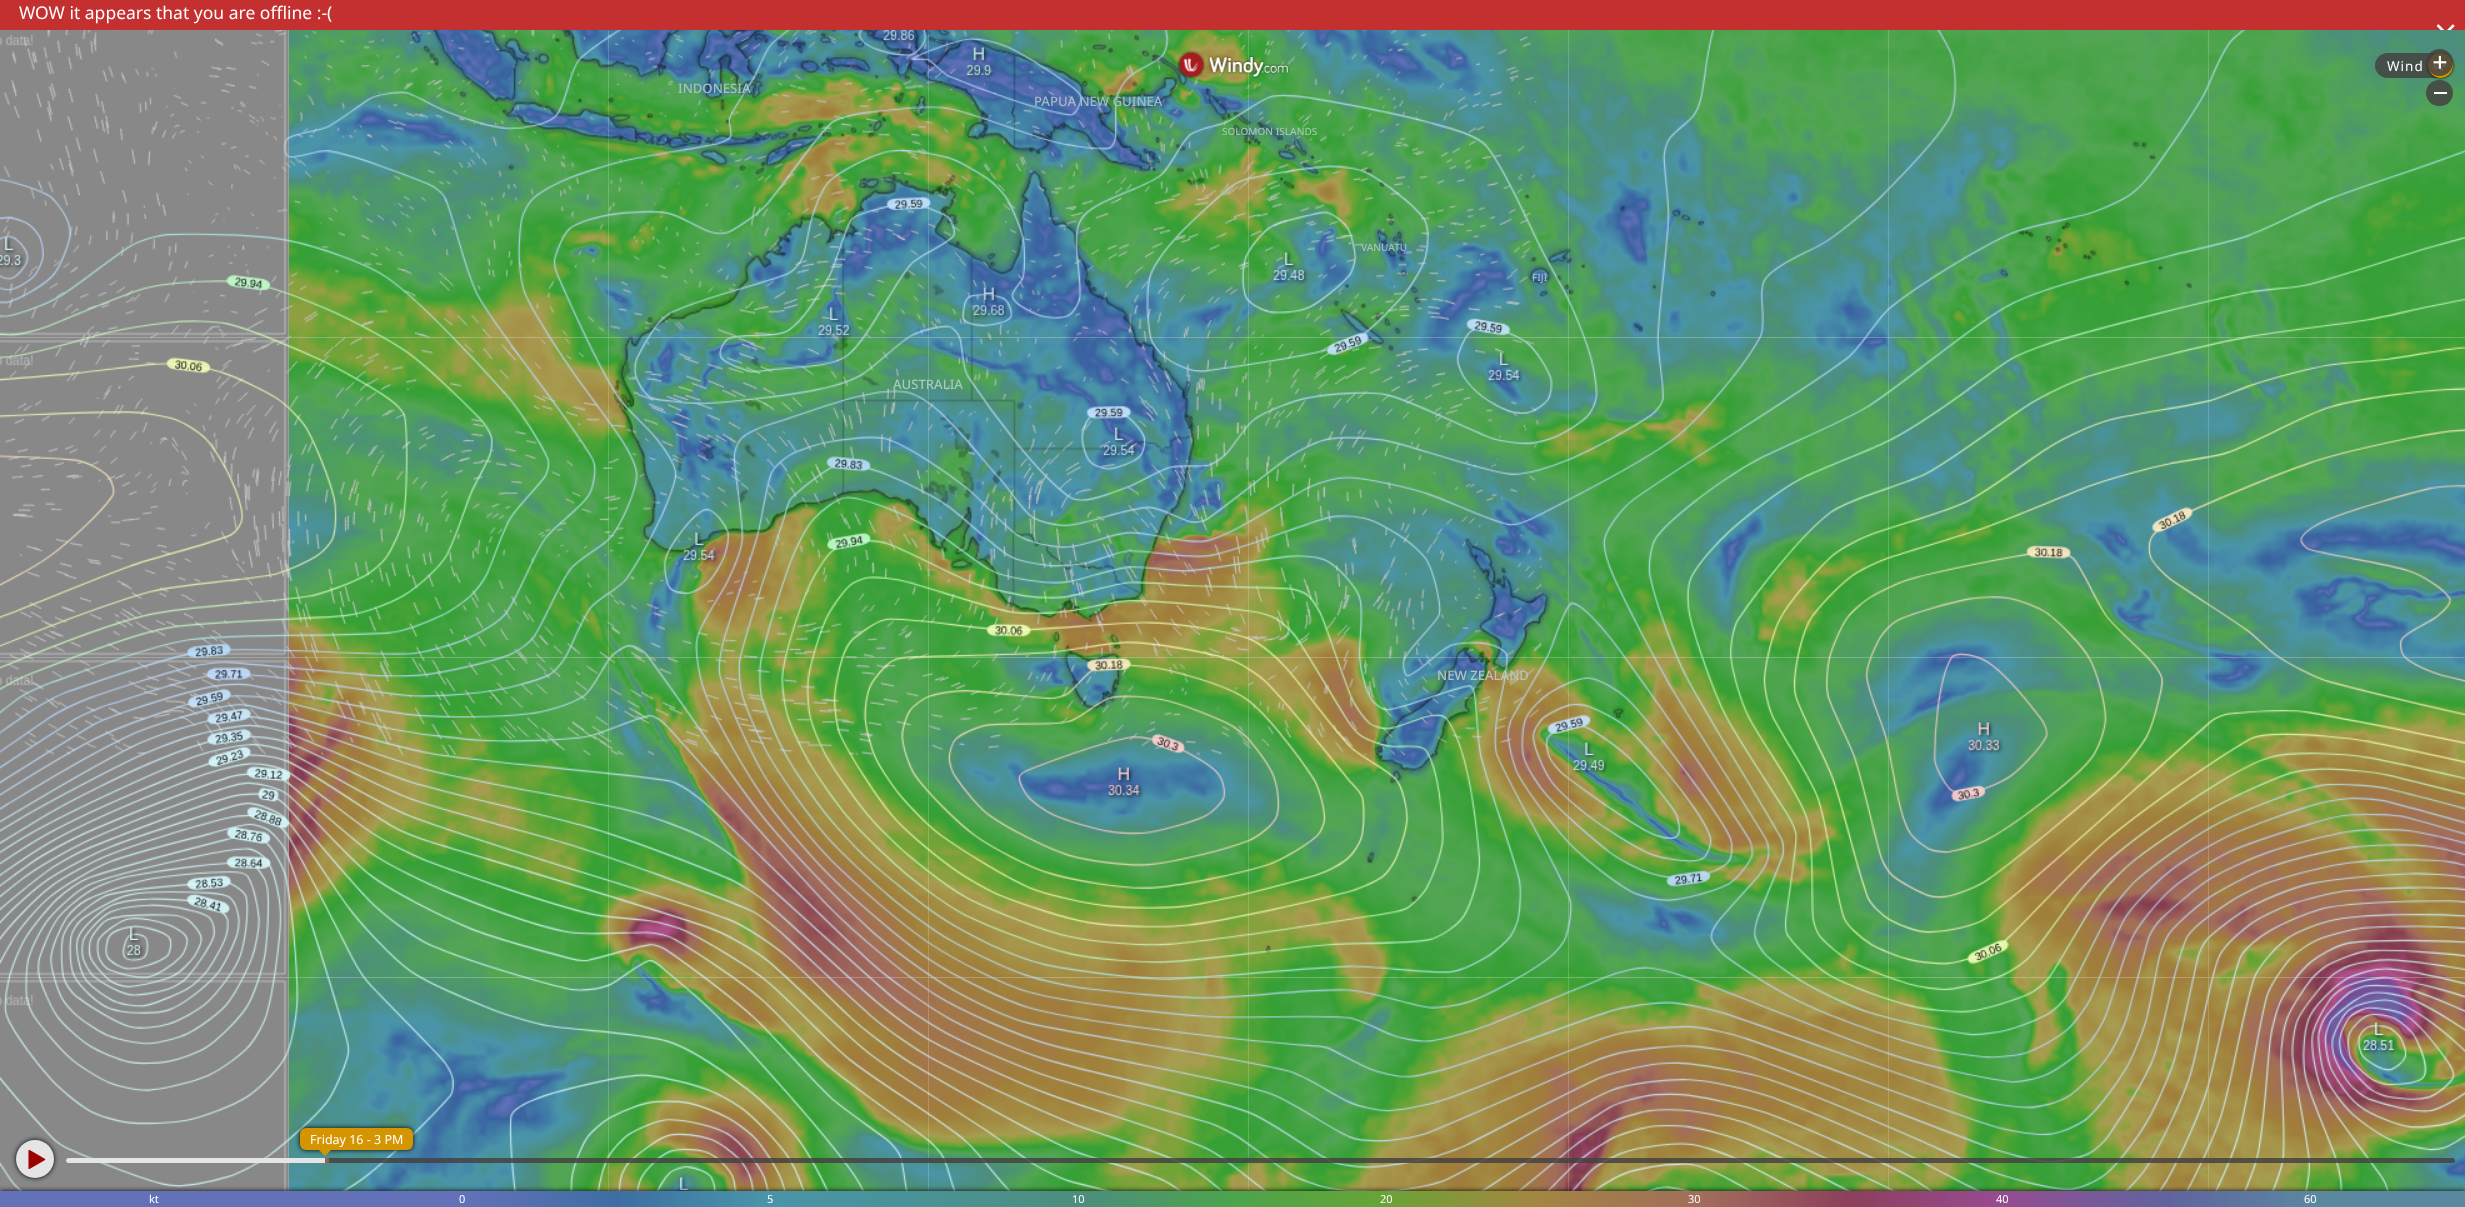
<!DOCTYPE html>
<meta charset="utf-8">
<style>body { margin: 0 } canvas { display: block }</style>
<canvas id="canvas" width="2465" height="1207"></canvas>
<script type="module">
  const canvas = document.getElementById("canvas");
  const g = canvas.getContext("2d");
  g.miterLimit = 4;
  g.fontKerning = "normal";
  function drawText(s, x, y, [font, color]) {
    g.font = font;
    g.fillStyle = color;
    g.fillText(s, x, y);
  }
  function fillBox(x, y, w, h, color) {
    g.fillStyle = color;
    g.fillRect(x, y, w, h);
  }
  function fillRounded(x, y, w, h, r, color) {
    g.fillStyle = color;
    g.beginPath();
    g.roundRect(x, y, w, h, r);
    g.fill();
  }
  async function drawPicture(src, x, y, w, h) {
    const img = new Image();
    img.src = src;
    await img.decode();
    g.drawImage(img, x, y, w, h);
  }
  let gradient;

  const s1 = ["17.5px Noto Sans", "#FFFFFF"];
  const s2 = ["13.5px Noto Sans", "#FFFFFF"];
  const s3 = ["500 13.1px Noto Sans", "#A2C3BC"];
  const s4 = ["500 13.1px Noto Sans", "#A2BBC6"];
  const s5 = ["500 10px Noto Sans", "#A2C7AD"];
  const s6 = ["500 10px Noto Sans", "#A2C3BC"];
  const s7 = ["500 10px Noto Sans", "#A2BBC6"];
  const s8 = ["500 13.1px Noto Sans", "#A6CAB8"];
  const s9 = ["500 13.1px Noto Sans", "#B7C4BC"];
  const s10 = ["12.5px Noto Sans", "#FFFFFF"];
  const s11 = ["11px Noto Sans", "#FFFFFF"];

  fillBox(0, 0, 2465, 1207, "#FFFFFF");
  fillBox(0, 0, 2465, 30, "#C42F2F");
  drawText("WOW it appears that you are offline :-(", 19, 19, s1);
  await drawPicture("pic1.png", 2436, 24, 19, 6);
  await drawPicture("pic17.png", 928, 337, 321, 321);
  await drawPicture("pic18.png", 1248, 337, 321, 321);
  await drawPicture("pic9.png", 928, 30, 321, 308);
  await drawPicture("pic25.png", 928, 657, 321, 321);
  await drawPicture("pic16.png", 608, 337, 321, 321);
  await drawPicture("pic8.png", 608, 30, 321, 308);
  await drawPicture("pic24.png", 608, 657, 321, 321);
  await drawPicture("pic15.png", 288, 337, 321, 321);
  await drawPicture("pic7.png", 288, 30, 321, 308);
  await drawPicture("pic26.png", 1248, 657, 321, 321);
  await drawPicture("pic33.png", 928, 977, 321, 214);
  await drawPicture("pic32.png", 608, 977, 321, 214);
  await drawPicture("pic23.png", 288, 657, 321, 321);
  await drawPicture("pic14.png", 0, 337, 289, 321);
  await drawPicture("pic6.png", 0, 30, 289, 308);
  await drawPicture("pic10.png", 1248, 30, 321, 308);
  await drawPicture("pic31.png", 288, 977, 321, 214);
  await drawPicture("pic22.png", 0, 657, 289, 321);
  await drawPicture("pic38.png", 2, 30, 1540, 726);
  await drawPicture("pic46.png", 928, 337, 271, 321);
  await drawPicture("pic41.png", 928, 30, 321, 308);
  await drawPicture("pic19.png", 1568, 337, 321, 321);
  await drawPicture("pic11.png", 1568, 30, 321, 308);
  await drawPicture("pic27.png", 1568, 657, 321, 321);
  await drawPicture("pic20.png", 1888, 337, 321, 321);
  await drawPicture("pic12.png", 1888, 30, 321, 308);
  await drawPicture("pic34.png", 1248, 977, 321, 214);
  await drawPicture("pic35.png", 1568, 977, 321, 214);
  await drawPicture("pic28.png", 1888, 657, 321, 321);
  await drawPicture("pic21.png", 2208, 337, 257, 321);
  await drawPicture("pic13.png", 2208, 30, 257, 308);
  await drawPicture("pic36.png", 1888, 977, 321, 214);
  await drawPicture("pic29.png", 2208, 657, 257, 321);
  await drawPicture("pic30.png", 0, 977, 289, 214);
  await drawPicture("pic37.png", 2208, 977, 257, 214);
  await drawPicture("pic45.png", 611, 337, 318, 220);
  await drawPicture("pic40.png", 608, 30, 321, 308);
  await drawPicture("pic39.png", 406, 30, 203, 141);
  await drawPicture("pic47.png", 1359, 337, 193, 321);
  await drawPicture("pic42.png", 1248, 30, 321, 308);
  await drawPicture("pic43.png", 1568, 205, 149, 127);
  await drawPicture("pic44.png", 1998, 140, 194, 149);
  await drawPicture("pic48.png", 1060, 657, 65, 57);
  await drawPicture("pic49.png", 1265, 657, 256, 297);
  await drawPicture("pic50.png", 1612, 706, 14, 14);
  await drawPicture("pic51.png", 0, 30, 2465, 1161);
  await drawPicture("pic2.png", 1177, 50, 29, 29);
  await drawPicture("pic3.png", 1207, 55, 83, 24);
  fillRounded(2375, 53, 78, 25, 12.5, "rgba(68, 65, 65, 0.84)");
  g.letterSpacing = "1px";
  drawText("Wind", 2387, 71, s2);
  g.fillStyle = "#000000";
  g.filter = "blur(1.5px)";
  g.beginPath();
  g.roundRect(2428, 53, 25, 25, 12.5);
  g.fill();
  g.filter = "none";
  g.fillStyle = "#D49500";
  g.beginPath();
  g.arc(2440.5, 65.5, 12.5, 0, Math.PI * 2);
  g.fill();
  await drawPicture("pic4.png", 2432, 61, 15, 10);
  g.fillStyle = "rgba(68, 65, 65, 0.84)";
  g.beginPath();
  g.arc(2439.5, 62.5, 13.5, 0, Math.PI * 2);
  g.fill();
  await drawPicture("pic5.png", 2433, 55, 14, 14);
  fillRounded(2426, 80, 27, 26, 13, "rgba(68, 65, 65, 0.84)");
  fillBox(2434, 92, 13, 2, "#FFFFFF");
  g.letterSpacing = "0px";
  drawText("INDONESIA", 678, 93, s3);
  drawText("PAPUA NEW GUINEA", 1034, 106, s4);
  drawText("SOLOMON ISLANDS", 1222, 135, s5);
  drawText("VANUATU", 1361, 251, s6);
  drawText("FIJI", 1532, 281, s7);
  drawText("AUSTRALIA", 893, 389, s8);
  drawText("NEW ZEALAND", 1437, 680, s9);
  g.fillStyle = "#000000";
  g.filter = "blur(2.5px)";
  g.beginPath();
  g.roundRect(16, 1140, 38, 38, 19);
  g.fill();
  g.filter = "none";
  g.fillStyle = "#E5E5E5";
  g.beginPath();
  g.arc(35, 1159, 19, 0, Math.PI * 2);
  g.fill();
  await drawPicture("pic52.png", 28, 1149, 18, 21);
  g.fillStyle = "#000000";
  g.filter = "blur(2.5px)";
  g.beginPath();
  g.roundRect(300, 1128, 113, 22, 6);
  g.fill();
  g.filter = "none";
  fillRounded(300, 1128, 113, 22, 6, "#D49500");
  drawText("Friday 16 - 3 PM", 310, 1144, s10);
  g.fillStyle = "#D49500";
  g.beginPath();
  g.moveTo(319, 1150);
  g.lineTo(331, 1150);
  g.lineTo(325, 1156);
  g.closePath();
  g.fill();
  fillRounded(66, 1158, 2389, 5, 2.5, "rgba(68, 65, 65, 0.84)");
  g.fillStyle = "#E5E5E5";
  g.beginPath();
  g.roundRect(66, 1158, 259, 5, [2.5, 0, 0, 2.5]);
  g.fill();
  fillBox(325, 1158, 4, 5, "#946051");
  g.fillStyle = "#000000";
  g.filter = "blur(2.5px)";
  g.beginPath();
  g.rect(0, 1191, 2465, 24);
  g.fill();
  g.filter = "none";
  gradient = g.createLinearGradient(0, 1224, 2465, 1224);
  gradient.addColorStop(0, "#6271B8");
  gradient.addColorStop(0.19, "#6271B8");
  gradient.addColorStop(0.25, "#3D6EA3");
  gradient.addColorStop(0.31, "#4A94AA");
  gradient.addColorStop(0.38, "#4A9294");
  gradient.addColorStop(0.44, "#4D8E7C");
  gradient.addColorStop(0.5, "#4CA44C");
  gradient.addColorStop(0.56, "#67A436");
  gradient.addColorStop(0.62, "#A28740");
  gradient.addColorStop(0.69, "#A26D5C");
  gradient.addColorStop(0.75, "#8D3F5C");
  gradient.addColorStop(0.81, "#974B91");
  gradient.addColorStop(0.88, "#5F64A0");
  gradient.addColorStop(0.94, "#5B88A1");
  gradient.addColorStop(1, "#5B88A1");
  g.fillStyle = gradient;
  g.fillRect(0, 1191, 2465, 16);
  drawText("kt", 149, 1203, s11);
  drawText("0", 459, 1203, s11);
  drawText("5", 767, 1203, s11);
  drawText("10", 1072, 1203, s11);
  drawText("20", 1380, 1203, s11);
  drawText("30", 1688, 1203, s11);
  drawText("40", 1996, 1203, s11);
  drawText("60", 2304, 1203, s11);
</script>
